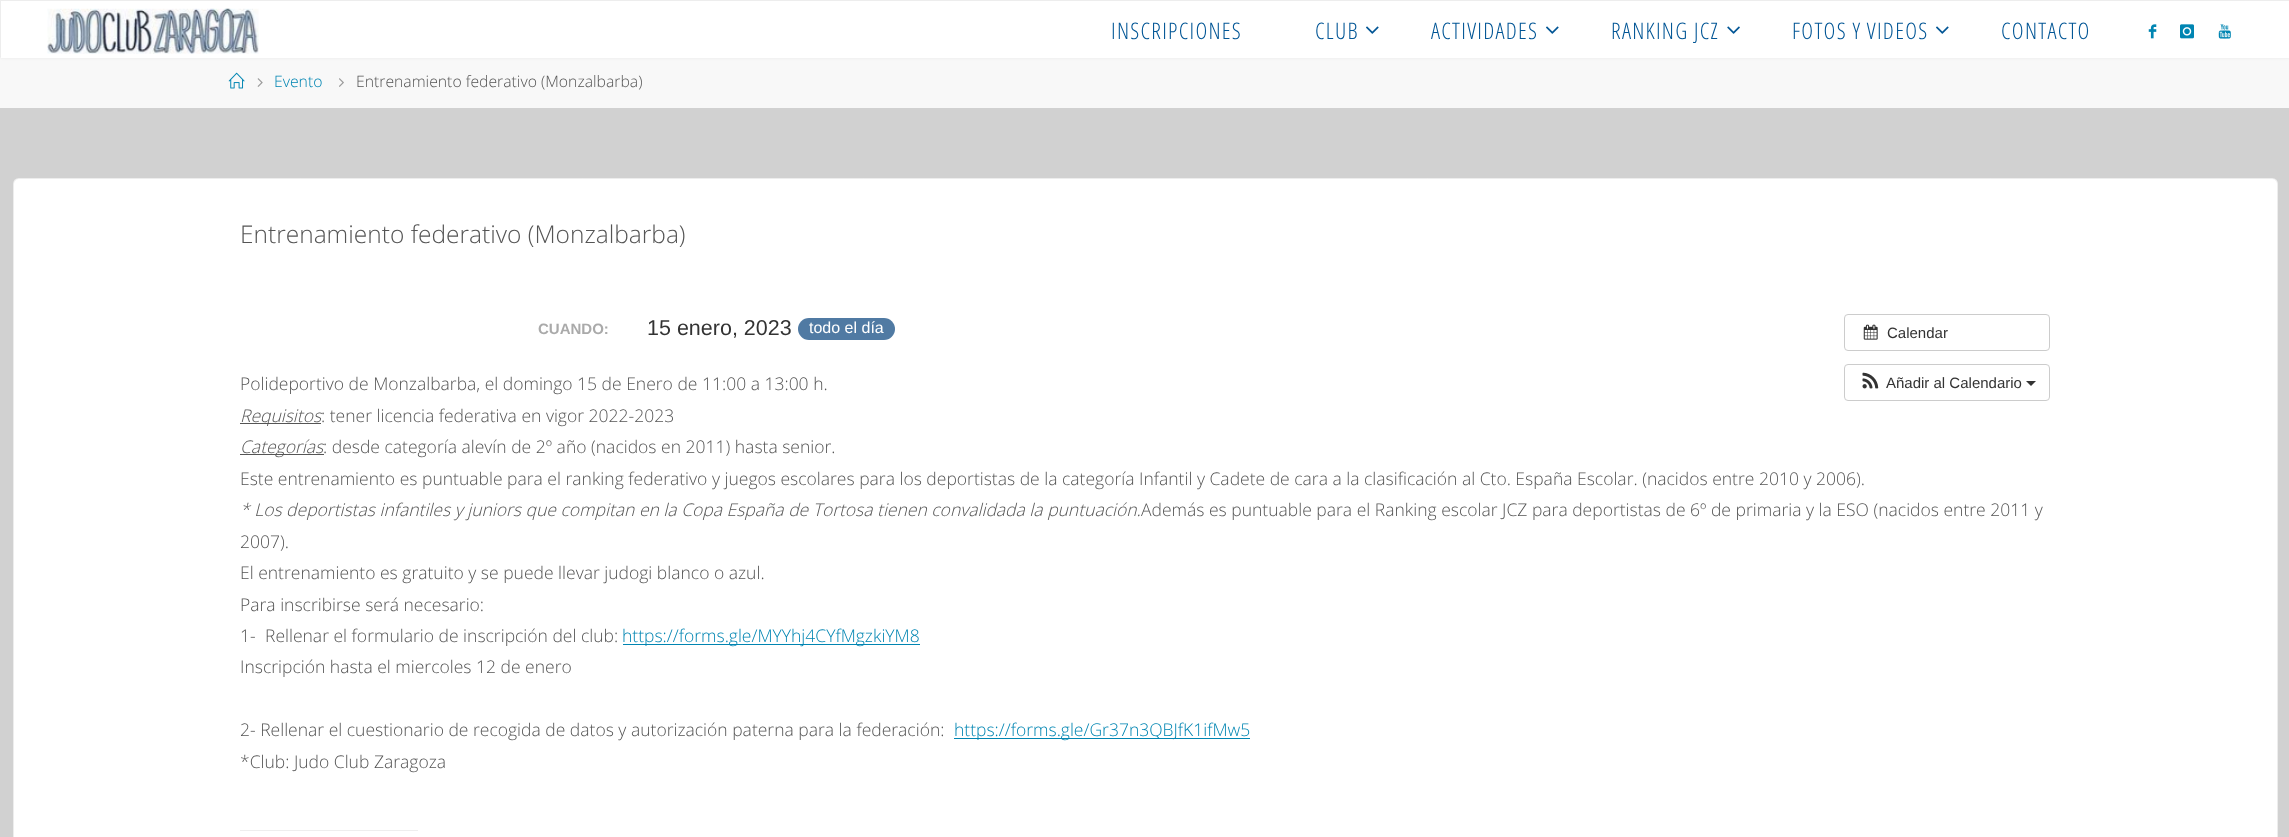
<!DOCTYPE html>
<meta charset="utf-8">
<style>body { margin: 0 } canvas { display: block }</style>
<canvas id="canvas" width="2289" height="837"></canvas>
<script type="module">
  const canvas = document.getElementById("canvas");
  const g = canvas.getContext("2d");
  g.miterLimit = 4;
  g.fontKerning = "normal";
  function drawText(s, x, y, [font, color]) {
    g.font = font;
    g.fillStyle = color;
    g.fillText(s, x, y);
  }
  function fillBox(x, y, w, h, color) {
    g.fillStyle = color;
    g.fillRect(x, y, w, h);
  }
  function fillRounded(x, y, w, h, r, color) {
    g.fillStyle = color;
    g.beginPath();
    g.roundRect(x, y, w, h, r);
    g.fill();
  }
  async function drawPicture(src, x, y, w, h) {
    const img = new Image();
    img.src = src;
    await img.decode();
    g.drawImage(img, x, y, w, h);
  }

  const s1 = ["300 22.75px Open Sans Condensed", "#015595"];
  const s2 = ["300 15.75px Open Sans", "#0085B2"];
  const s3 = ["300 15.75px Open Sans", "#555555"];
  const s4 = ["300 24.5px Open Sans", "#555555"];
  const s5 = ["300 17.5px Open Sans", "#555555"];
  const s6 = ["bold 15px Liberation Sans", "#AAAAAA"];
  const s7 = ["21.5px Liberation Sans", "#333333"];
  const s8 = ["16px Liberation Sans", "#FFFFFF"];
  const s9 = ["15px Liberation Sans", "#333333"];
  const s10 = ["italic 300 17.5px Open Sans", "#555555"];
  const s11 = ["300 17.5px Open Sans", "#0085B2"];

  fillBox(0, 0, 2289, 837, "#D1D1D1");
  fillBox(0, 56, 2289, 52, "#F8F8F8");
  g.fillStyle = "rgba(0, 0, 0, 0.2)";
  g.filter = "blur(2px)";
  g.beginPath();
  g.rect(0, 0, 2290, 56);
  g.fill();
  g.filter = "none";
  g.strokeStyle = "#EDEDED";
  g.strokeRect(0.5, 0.5, 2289, 55);
  fillBox(1, 1, 2288, 57, "#FFFFFF");
  await drawPicture("pic1.png", 47, 8, 212, 46);
  g.letterSpacing = "1.25px";
  drawText("INSCRIPCIONES", 1111, 39, s1);
  drawText("CLUB", 1315, 39, s1);
  await drawPicture("pic2.png", 1366, 26, 13, 8);
  drawText("ACTIVIDADES", 1431, 39, s1);
  await drawPicture("pic2.png", 1546, 26, 13, 8);
  drawText("RANKING JCZ", 1611, 39, s1);
  await drawPicture("pic3.png", 1727, 26, 13, 8);
  drawText("FOTOS Y VIDEOS", 1792, 39, s1);
  await drawPicture("pic2.png", 1936, 26, 13, 8);
  drawText("CONTACTO", 2001, 39, s1);
  await drawPicture("pic4.png", 2148, 24, 9, 15);
  await drawPicture("pic5.png", 2180, 24, 14, 15);
  await drawPicture("pic6.png", 2218, 24, 13, 15);
  await drawPicture("pic7.png", 228, 72, 17, 17);
  await drawPicture("pic8.png", 257, 78, 6, 9);
  g.letterSpacing = "0px";
  drawText("Evento", 274, 87, s2);
  await drawPicture("pic9.png", 339, 78, 5, 9);
  drawText("Entrenamiento federativo (Monzalbarba)", 356, 87, s3);
  fillRounded(13, 178, 2265, 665, 6, "#FFFFFF");
  g.beginPath();
  g.roundRect(13.5, 178.5, 2264, 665, 5.5);
  g.strokeStyle = "rgba(0, 0, 0, 0.07)";
  g.stroke();
  drawText("Entrenamiento federativo (Monzalbarba)", 240, 243, s4);
  drawText("Polideportivo de Monzalbarba, el domingo 15 de Enero de 11:00 a 13:00 h.", 240, 390, s5);
  drawText("CUANDO:", 538, 334, s6);
  drawText("15 enero, 2023", 647, 335, s7);
  fillRounded(798, 318, 97, 22, 11, "#507AA3");
  drawText("todo el día", 809, 333, s8);
  g.beginPath();
  g.roundRect(1844.5, 314.5, 205, 36, 3.5);
  g.strokeStyle = "#CCCCCC";
  g.stroke();
  await drawPicture("pic10.png", 1863, 324, 15, 16);
  drawText("Calendar", 1887, 338, s9);
  g.beginPath();
  g.roundRect(1844.5, 364.5, 205, 36, 3.5);
  g.stroke();
  await drawPicture("pic11.png", 1862, 372, 17, 17);
  drawText("Añadir al Calendario", 1886, 388, s9);
  g.beginPath();
  g.moveTo(2026, 381);
  g.lineTo(2036, 381);
  g.lineTo(2031, 386);
  g.closePath();
  g.fill();
  fillBox(240, 423, 81, 1, "#555555");
  drawText("Requisitos", 240, 422, s10);
  drawText(": tener licencia federativa en vigor 2022-2023", 321, 422, s5);
  fillBox(240, 454, 84, 1, "#555555");
  drawText("Categorías", 240, 453, s10);
  drawText(": desde categoría alevín de 2º año (nacidos en 2011) hasta senior.", 323, 453, s5);
  drawText("Este entrenamiento es puntuable para el ranking federativo y juegos escolares para los deportistas de la categoría Infantil y Cadete de cara a la clasificación al Cto. España Escolar. (nacidos entre 2010 y 2006).", 240, 485, s5);
  drawText("* Los deportistas infantiles y juniors que compitan en la Copa España de Tortosa tienen convalidada la puntuación.", 240, 516, s10);
  drawText("Además es puntuable para el Ranking escolar JCZ para deportistas de 6º de primaria y la ESO (nacidos entre 2011 y", 1141, 516, s5);
  drawText("2007).", 240, 548, s5);
  drawText("El entrenamiento es gratuito y se puede llevar judogi blanco o azul.", 240, 579, s5);
  drawText("Para inscribirse será necesario:", 240, 611, s5);
  drawText("1-", 240, 642, s5);
  drawText("Rellenar el formulario de inscripción del club:", 265, 642, s5);
  fillBox(623, 644, 297, 1, "#0085B2");
  drawText("https://forms.gle/MYYhj4CYfMgzkiYM8", 622, 642, s11);
  drawText("Inscripción hasta el miercoles 12 de enero", 240, 673, s5);
  drawText("2- Rellenar el cuestionario de recogida de datos y autorización paterna para la federación:", 240, 736, s5);
  fillBox(954, 738, 296, 1, "#0085B2");
  drawText("https://forms.gle/Gr37n3QBJfK1ifMw5", 954, 736, s11);
  drawText("*Club: Judo Club Zaragoza", 240, 768, s5);
  fillBox(240, 830, 178, 1, "#EEEEEE");
</script>
